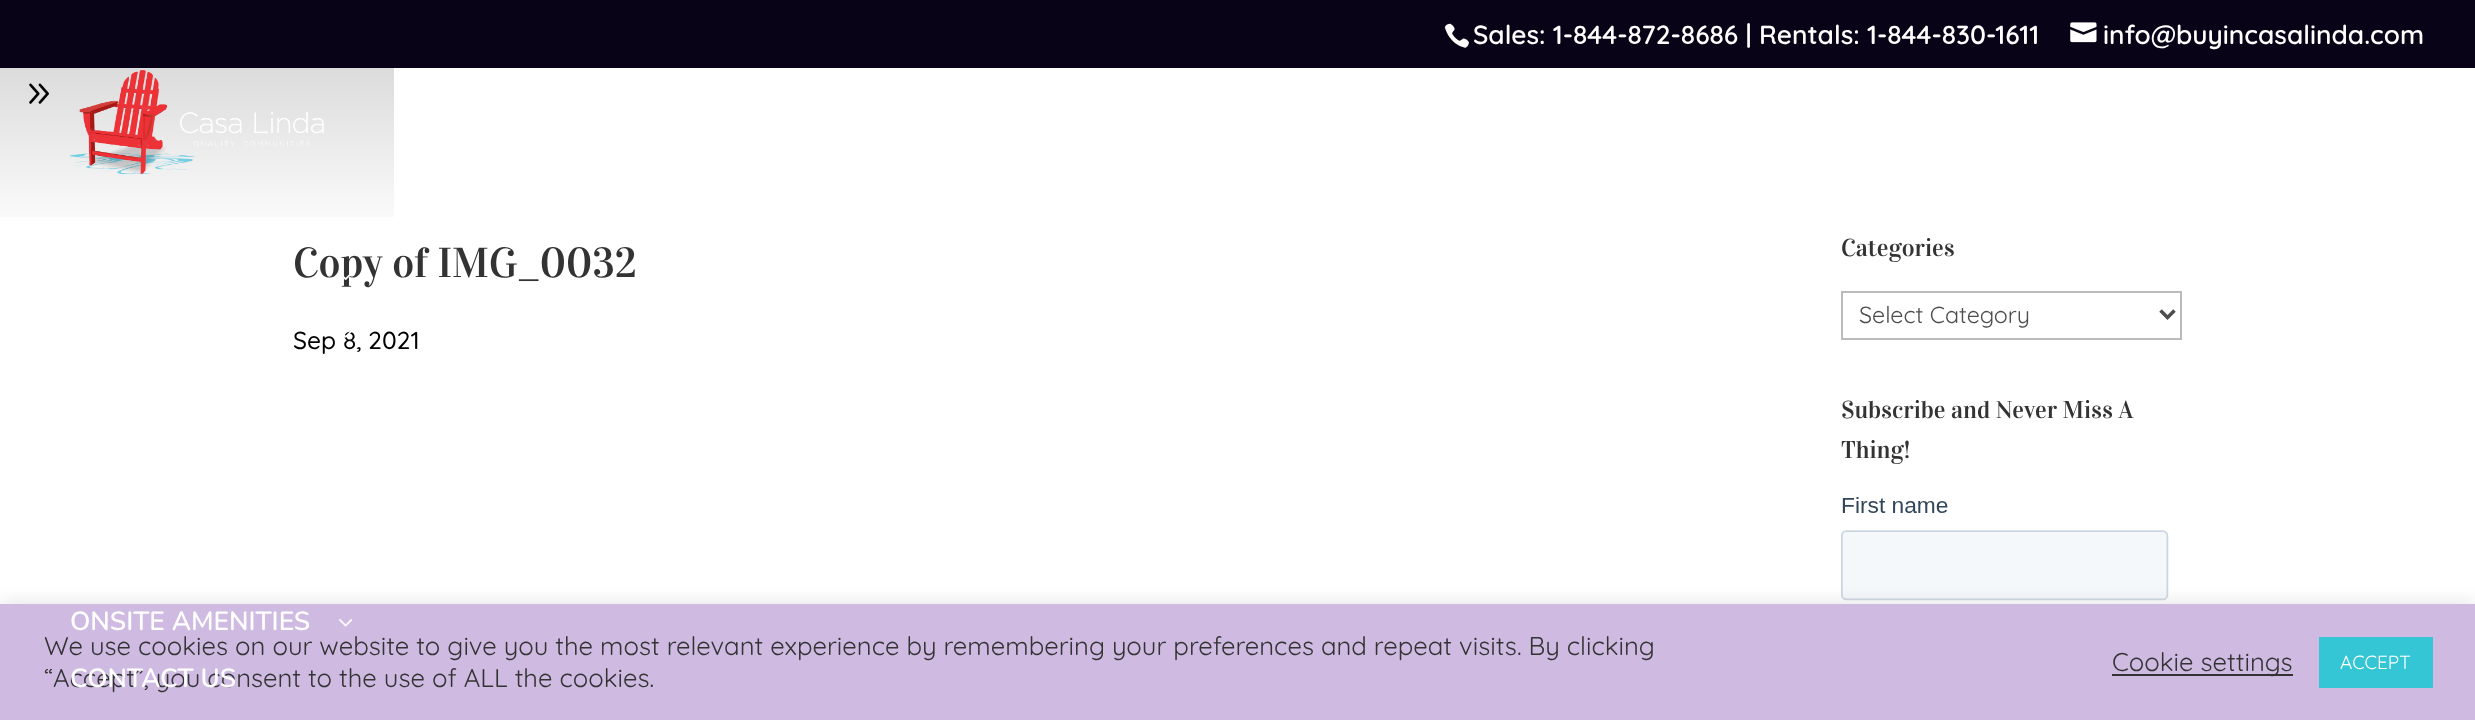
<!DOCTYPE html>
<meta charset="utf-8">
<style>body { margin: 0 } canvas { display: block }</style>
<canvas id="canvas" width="2475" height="720"></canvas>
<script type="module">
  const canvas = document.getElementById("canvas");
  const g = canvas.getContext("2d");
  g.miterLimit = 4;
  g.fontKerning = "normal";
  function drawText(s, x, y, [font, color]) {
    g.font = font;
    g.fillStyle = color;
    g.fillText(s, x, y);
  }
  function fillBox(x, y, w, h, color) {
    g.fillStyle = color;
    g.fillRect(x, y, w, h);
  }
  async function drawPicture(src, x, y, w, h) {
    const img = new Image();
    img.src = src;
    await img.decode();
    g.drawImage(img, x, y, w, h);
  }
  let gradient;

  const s1 = ["600 26.25px Quicksand", "#FFFFFF"];
  const s2 = ["42px Vidaloka", "#333333"];
  const s3 = ["500 24.5px Quicksand", "#000000"];
  const s4 = ["24.5px Vidaloka", "#333333"];
  const s5 = ["23.25px Quicksand", "#4E4E4E"];
  const s6 = ["600 26.25px Nunito", "#FFFFFF"];
  const s7 = ["25.67px Quicksand", "#333333"];
  const s8 = ["19px Quicksand", "#FFFFFF"];

  fillBox(0, 0, 2475, 720, "#FFFFFF");
  fillBox(0, 0, 2475, 68, "#080316");
  await drawPicture("pic1.png", 1444, 23, 25, 25);
  drawText("Sales: 1-844-872-8686 | Rentals: 1-844-830-1611", 1473, 44, s1);
  await drawPicture("pic2.png", 2070, 22, 27, 21);
  drawText("info@buyincasalinda.com", 2103, 44, s1);
  await drawPicture("pic3.png", 29, 83, 20, 21);
  drawText("Copy of IMG_0032", 293, 277, s2);
  drawText("Sep 8, 2021", 293, 349, s3);
  drawText("Categories", 1841, 256, s4);
  g.strokeStyle = "#BBBBBB";
  g.lineWidth = 2;
  g.strokeRect(1842, 292, 339, 47);
  g.beginPath();
  g.moveTo(2160.5, 310.5);
  g.lineTo(2167.5, 317.5);
  g.lineTo(2174.5, 310.5);
  g.strokeStyle = "#4E4E4E";
  g.lineWidth = 3.5;
  g.stroke();
  drawText("Select Category", 1859, 323, s5);
  drawText("Subscribe and Never Miss A", 1841, 418, s4);
  drawText("Thing!", 1841, 458, s4);
  await drawPicture("pic4.png", 1841, 497, 328, 104);
  gradient = g.createLinearGradient(197, 0, 197, 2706);
  gradient.addColorStop(0, "rgba(10, 10, 10, 0.2)");
  gradient.addColorStop(0.09, "rgba(10, 10, 10, 0)");
  g.fillStyle = gradient;
  g.fillRect(0, 68, 394, 149);
  await drawPicture("pic5.png", 70, 70, 254, 105);
  await drawPicture("pic6.png", 344, 274, 6, 6);
  await drawPicture("pic7.png", 344, 331, 8, 7);
  g.fillStyle = "rgba(172, 171, 171, 0.3)";
  g.filter = "blur(9px)";
  g.beginPath();
  g.rect(0, 602, 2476, 117);
  g.fill();
  g.filter = "none";
  fillBox(0, 604, 2475, 116, "#CFBAE2");
  drawText("ONSITE AMENITIES", 70, 630, s6);
  await drawPicture("pic8.png", 339, 619, 13, 8);
  drawText("“Accept”, you consent to the use of ALL the cookies.", 44, 687, s7);
  drawText("CONTACT US", 70, 687, s6);
  drawText("We use cookies on our website to give you the most relevant experience by remembering your preferences and repeat visits. By clicking", 44, 655, s7);
  fillBox(2112, 674, 181, 2, "#333333");
  drawText("Cookie settings", 2112, 671, s7);
  fillBox(2319, 637, 114, 51, "#35C6D6");
  drawText("ACCEPT", 2340, 669, s8);
</script>
